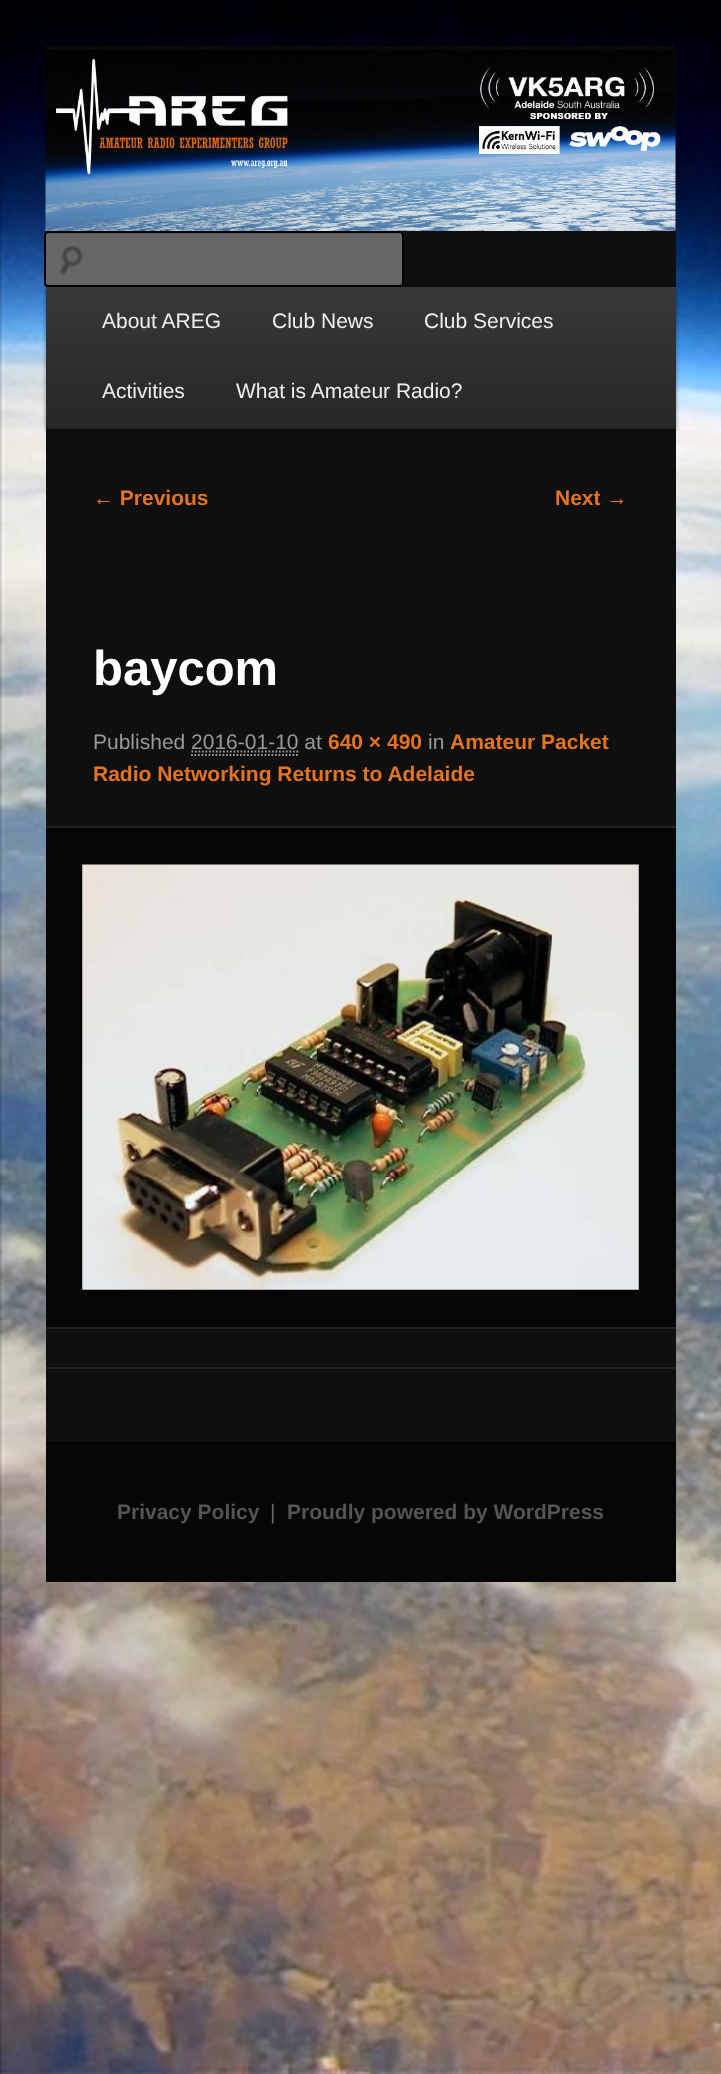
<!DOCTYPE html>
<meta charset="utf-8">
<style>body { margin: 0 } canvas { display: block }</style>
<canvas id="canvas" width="721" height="2074"></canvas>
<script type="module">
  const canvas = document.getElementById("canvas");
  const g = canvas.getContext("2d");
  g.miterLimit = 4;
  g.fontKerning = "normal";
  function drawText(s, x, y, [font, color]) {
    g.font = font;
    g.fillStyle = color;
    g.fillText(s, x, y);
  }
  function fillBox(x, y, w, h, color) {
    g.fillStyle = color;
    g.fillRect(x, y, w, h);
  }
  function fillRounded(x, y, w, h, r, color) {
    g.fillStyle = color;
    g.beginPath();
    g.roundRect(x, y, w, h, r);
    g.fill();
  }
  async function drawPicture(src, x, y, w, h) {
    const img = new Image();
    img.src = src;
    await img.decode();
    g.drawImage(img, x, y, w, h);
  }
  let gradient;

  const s1 = ["21px Liberation Sans", "#EEEEEE"];
  const s2 = ["bold 21px Liberation Sans", "#E4741F"];
  const s3 = ["bold 49px Liberation Sans", "#FFFFFF"];
  const s4 = ["21px Liberation Sans", "#999999"];
  const s5 = ["bold 21px Liberation Sans", "#555555"];
  const s6 = ["21px Liberation Sans", "#666666"];

  fillBox(0, 0, 721, 2074, "#FFFFFF");
  await drawPicture("pic1.png", 0, 0, 721, 2074);
  fillBox(46, 50, 630, 1392, "#0F0F0F");
  fillBox(46, 46, 630, 4, "#0A0A0A");
  await drawPicture("pic2.png", 45, 49, 631, 182);
  fillRounded(44, 231, 360, 56, 4, "#666666");
  await drawPicture("pic3.png", 59, 245, 24, 30);
  g.fillStyle = "#5C5C5C";
  g.beginPath();
  g.moveTo(47, 234);
  g.lineTo(401, 234);
  g.bezierCurveTo(402, 234, 402, 235, 402, 236);
  g.lineTo(402, 285);
  g.lineTo(403, 283);
  g.lineTo(403, 235);
  g.bezierCurveTo(403, 234, 402, 233, 401, 233);
  g.lineTo(48, 233);
  g.bezierCurveTo(46, 233, 46, 235, 46, 236);
  g.bezierCurveTo(46, 235, 46, 234, 47, 234);
  g.closePath();
  g.fill();
  g.beginPath();
  g.roundRect(45, 232, 358, 54, 3);
  g.strokeStyle = "#000000";
  g.lineWidth = 2;
  g.stroke();
  g.fillStyle = "rgba(0, 0, 0, 0.4)";
  g.filter = "blur(2px)";
  g.beginPath();
  g.rect(46, 289, 630, 142);
  g.fill();
  g.filter = "none";
  gradient = g.createLinearGradient(361, 287, 361, 427);
  gradient.addColorStop(0, "#383838");
  gradient.addColorStop(1, "#272727");
  g.fillStyle = gradient;
  g.fillRect(46, 287, 630, 140);
  fillBox(46, 427, 630, 2, "#222222");
  drawText("About AREG", 102, 328, s1);
  drawText("Club News", 272, 328, s1);
  drawText("Club Services", 424, 328, s1);
  drawText("Activities", 102, 398, s1);
  drawText("What is Amateur Radio?", 236, 398, s1);
  drawText("← Previous", 93, 505, s2);
  drawText("Next →", 555, 505, s2);
  drawText("baycom", 93, 685, s3);
  drawText("Published 2016-01-10 at", 93, 749, s4);
  drawText("640 × 490", 328, 749, s2);
  drawText("in", 428, 749, s4);
  drawText("Amateur Packet", 450, 749, s2);
  g.beginPath();
  g.moveTo(191.5, 751.5);
  g.lineTo(299, 751.5);
  g.strokeStyle = "#999999";
  g.lineWidth = 1.8;
  g.setLineDash([1.75, 1.75]);
  g.stroke();
  g.beginPath();
  g.moveTo(191, 755);
  g.lineTo(299, 755);
  g.stroke();
  drawText("Radio Networking Returns to Adelaide", 93, 781, s2);
  fillBox(46, 828, 630, 499, "#060606");
  fillBox(46, 826, 630, 2, "#222222");
  fillBox(46, 1327, 630, 2, "#222222");
  await drawPicture("pic4.png", 82, 864, 557, 426);
  fillBox(46, 1367, 630, 2, "#222222");
  fillBox(46, 1444, 630, 138, "#060606");
  fillBox(46, 1442, 630, 2, "#000000");
  drawText("Privacy Policy", 117, 1519, s5);
  drawText("|", 270, 1519, s6);
  drawText("Proudly powered by WordPress", 287, 1519, s5);
</script>
